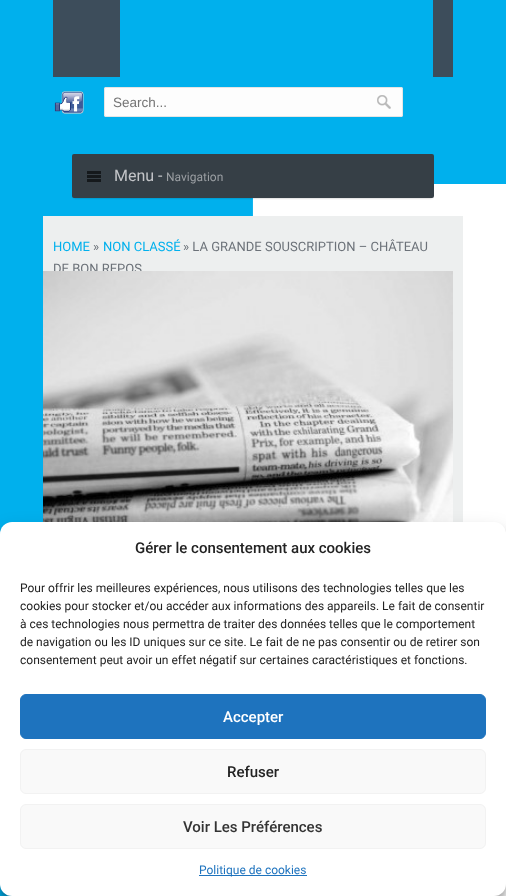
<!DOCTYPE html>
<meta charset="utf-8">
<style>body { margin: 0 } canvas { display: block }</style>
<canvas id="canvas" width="506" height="896"></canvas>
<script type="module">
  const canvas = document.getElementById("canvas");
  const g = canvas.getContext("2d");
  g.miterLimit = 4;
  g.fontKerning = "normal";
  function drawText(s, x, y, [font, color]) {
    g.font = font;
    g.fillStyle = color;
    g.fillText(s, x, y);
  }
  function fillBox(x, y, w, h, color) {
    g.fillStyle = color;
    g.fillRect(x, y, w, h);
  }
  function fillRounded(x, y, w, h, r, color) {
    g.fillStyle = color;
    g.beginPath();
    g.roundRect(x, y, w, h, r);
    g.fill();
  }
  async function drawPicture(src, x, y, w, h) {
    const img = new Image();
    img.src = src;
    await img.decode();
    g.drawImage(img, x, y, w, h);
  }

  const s1 = ["13.5px Liberation Sans", "#757575"];
  const s2 = ["16px Roboto", "#C3C5C8"];
  const s3 = ["12px Roboto", "#9B9FA3"];
  const s4 = ["13px Roboto", "#00B0ED"];
  const s5 = ["13px Roboto", "#6C7279"];
  const s6 = ["500 15px Roboto", "#222222"];
  const s7 = ["12px Roboto", "#222222"];
  const s8 = ["500 15px Roboto", "#FFFFFF"];
  const s9 = ["500 15px Roboto", "#333333"];
  const s10 = ["12px Roboto", "#1E73BE"];

  fillBox(0, 0, 506, 896, "#FFFFFF");
  await drawPicture("pic1.png", 0, 184, 506, 712);
  fillBox(0, 0, 506, 184, "#00B0ED");
  fillBox(53, 0, 400, 77, "#3D4D5B");
  fillBox(120, 0, 313, 77, "#00B0ED");
  await drawPicture("pic2.png", 54, 91, 30, 23);
  fillRounded(104, 87, 299, 30, 2, "#FDFDFD");
  await drawPicture("pic3.png", 377, 95, 14, 14);
  g.beginPath();
  g.roundRect(104.5, 87.5, 298, 29, 1.5);
  g.strokeStyle = "#E5E5E5";
  g.stroke();
  drawText("Search...", 113, 107, s1);
  g.fillStyle = "rgba(0, 0, 0, 0.3)";
  g.filter = "blur(1px)";
  g.beginPath();
  g.rect(74, 158, 358, 40);
  g.fill();
  g.filter = "none";
  fillRounded(72, 154, 362, 44, 2, "#363F46");
  await drawPicture("pic4.png", 87, 171, 14, 11);
  drawText("Menu -", 114, 181, s2);
  drawText("Navigation", 166, 181, s3);
  fillBox(43, 216, 420, 306, "#EDEFEF");
  drawText("HOME", 53, 251, s4);
  drawText("»", 93, 251, s5);
  drawText("NON CLASSÉ", 103, 251, s4);
  drawText("» LA GRANDE SOUSCRIPTION – CHÂTEAU", 183, 251, s5);
  drawText("DE BON REPOS", 53, 273, s5);
  await drawPicture("pic5.png", 43, 271, 410, 251);
  g.fillStyle = "rgba(0, 0, 0, 0.23)";
  g.filter = "blur(3px)";
  g.beginPath();
  g.roundRect(0, 528, 506, 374, 12);
  g.fill();
  g.filter = "none";
  g.fillStyle = "rgba(0, 0, 0, 0.19)";
  g.filter = "blur(10px)";
  g.beginPath();
  g.roundRect(0, 532, 506, 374, 12);
  g.fill();
  g.filter = "none";
  fillRounded(0, 522, 506, 374, 12, "#FFFFFF");
  drawText("Gérer le consentement aux cookies", 135, 553, s6);
  drawText("Pour offrir les meilleures expériences, nous utilisons des technologies telles que les", 20, 592, s7);
  drawText("cookies pour stocker et/ou accéder aux informations des appareils. Le fait de consentir", 20, 610, s7);
  drawText("à ces technologies nous permettra de traiter des données telles que le comportement", 20, 628, s7);
  drawText("de navigation ou les ID uniques sur ce site. Le fait de ne pas consentir ou de retirer son", 20, 646, s7);
  drawText("consentement peut avoir un effet négatif sur certaines caractéristiques et fonctions.", 20, 664, s7);
  g.fillStyle = "#1E73BE";
  g.beginPath();
  g.roundRect(20.5, 694.5, 465, 44, 5.5);
  g.fill();
  g.strokeStyle = "#1E73BE";
  g.stroke();
  drawText("Accepter", 223, 722, s8);
  g.fillStyle = "#F9F9F9";
  g.beginPath();
  g.roundRect(20.5, 749.5, 465, 44, 5.5);
  g.fill();
  g.strokeStyle = "#F2F2F2";
  g.stroke();
  drawText("Refuser", 227, 777, s6);
  g.fillStyle = "#F9F9F9";
  g.beginPath();
  g.roundRect(20.5, 804.5, 465, 44, 5.5);
  g.fill();
  g.stroke();
  drawText("Voir Les Préférences", 183, 832, s9);
  fillBox(199, 875, 108, 1, "#1E73BE");
  drawText("Politique de cookies", 199, 874, s10);
</script>
